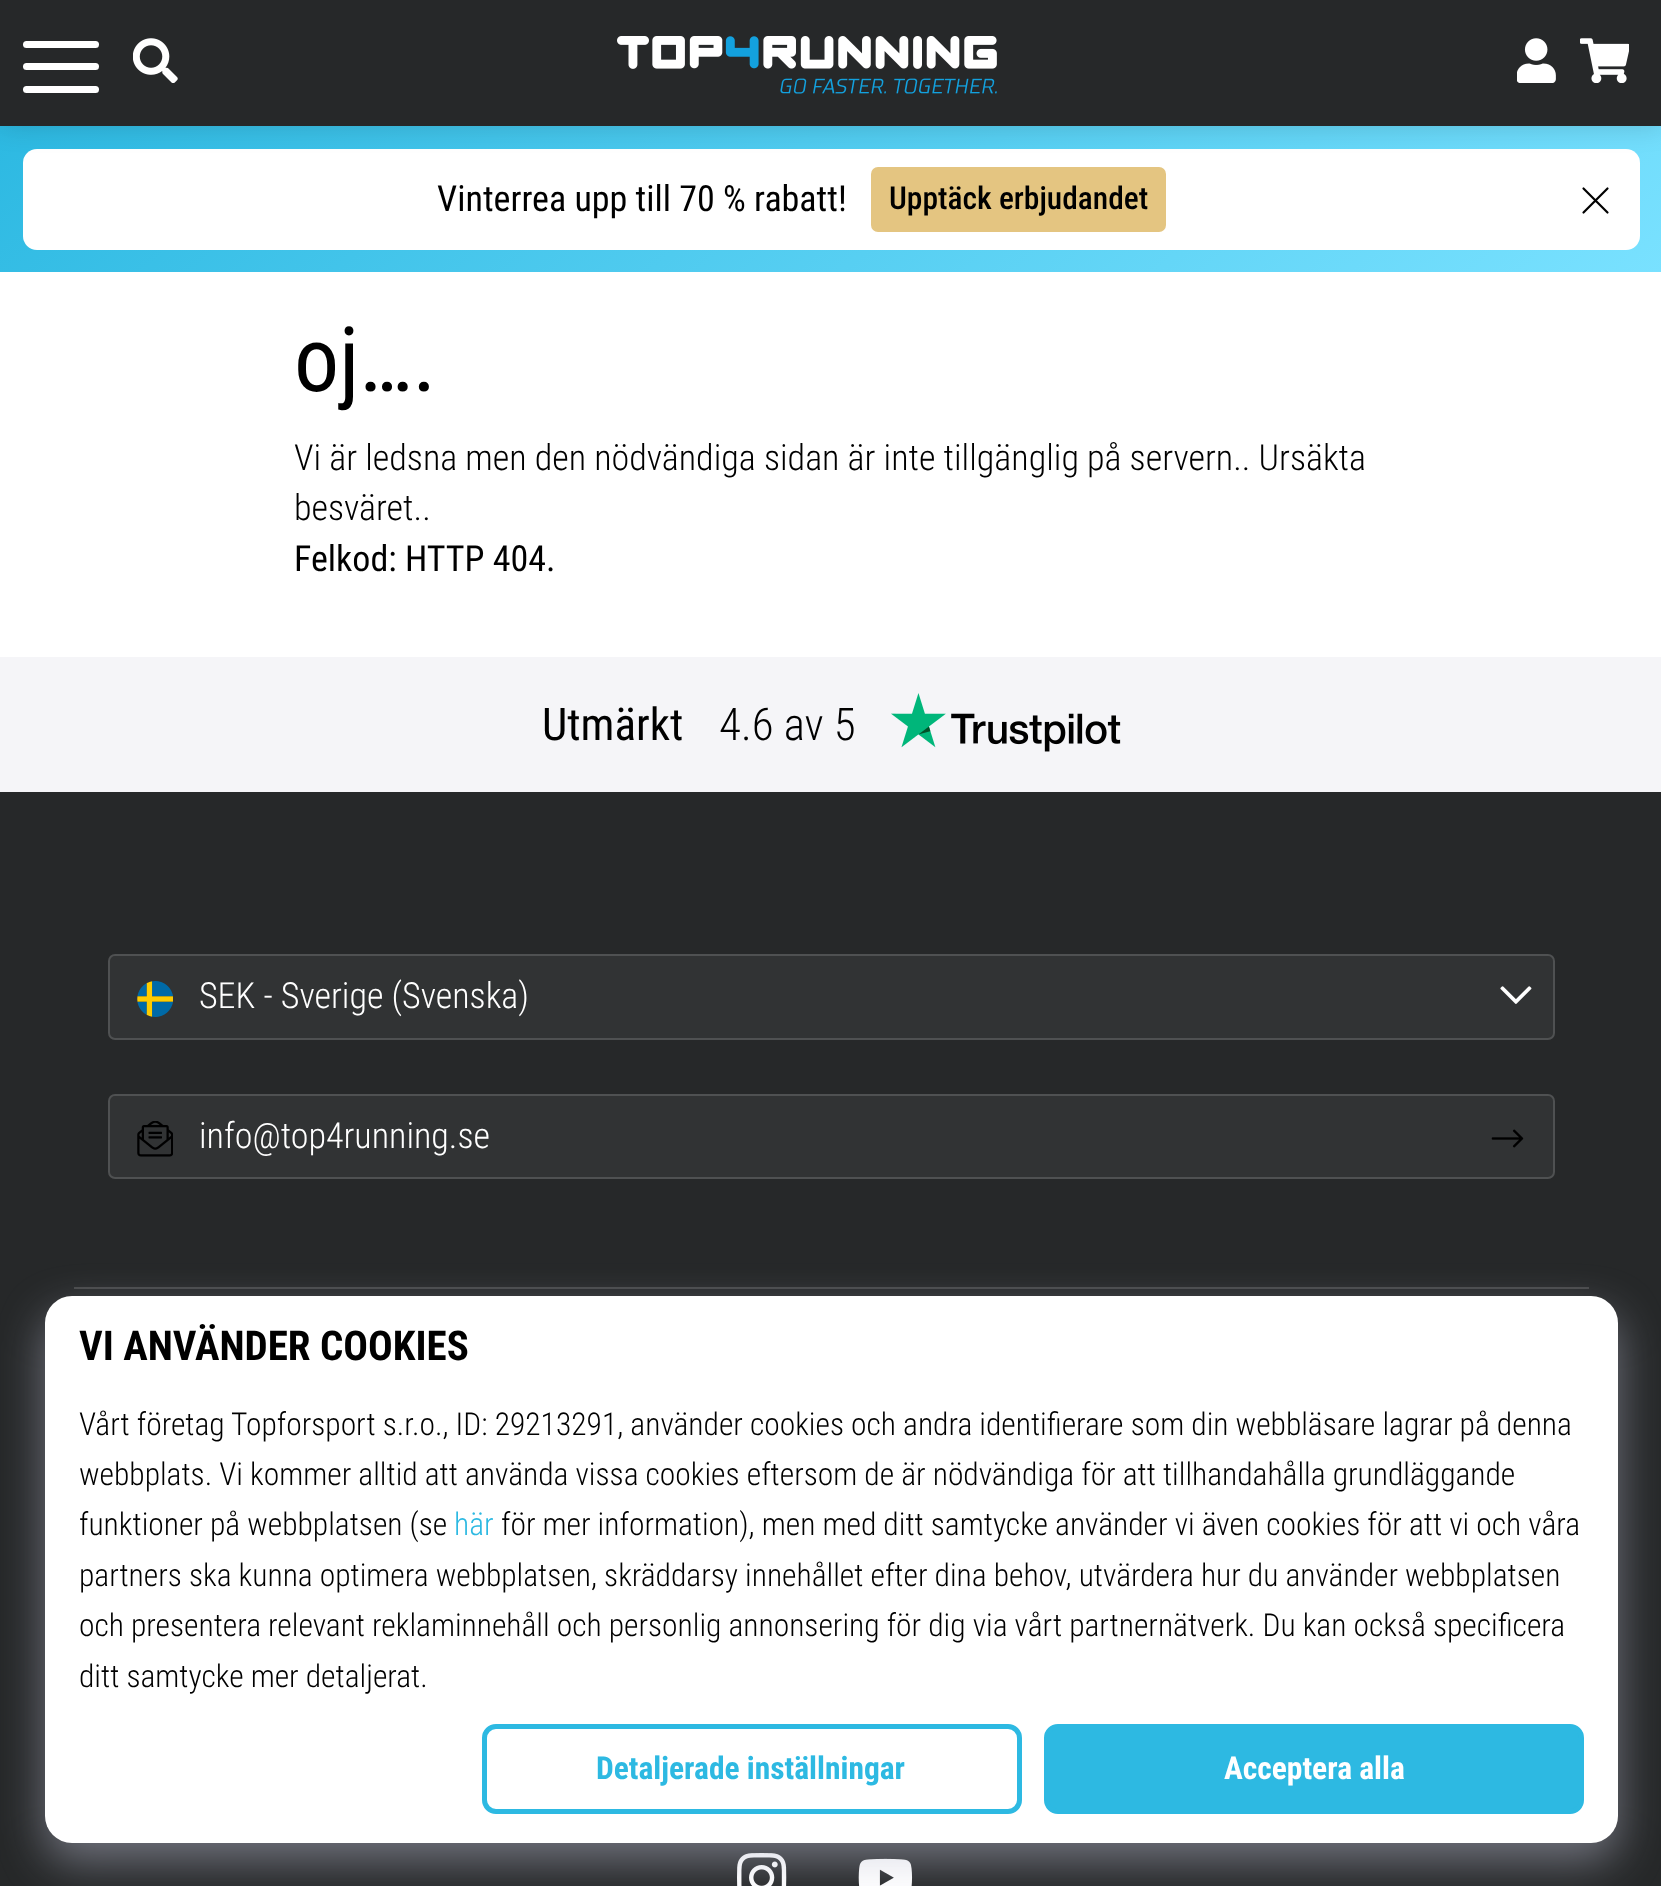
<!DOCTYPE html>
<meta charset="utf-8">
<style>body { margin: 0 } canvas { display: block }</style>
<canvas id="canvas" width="1661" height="1886"></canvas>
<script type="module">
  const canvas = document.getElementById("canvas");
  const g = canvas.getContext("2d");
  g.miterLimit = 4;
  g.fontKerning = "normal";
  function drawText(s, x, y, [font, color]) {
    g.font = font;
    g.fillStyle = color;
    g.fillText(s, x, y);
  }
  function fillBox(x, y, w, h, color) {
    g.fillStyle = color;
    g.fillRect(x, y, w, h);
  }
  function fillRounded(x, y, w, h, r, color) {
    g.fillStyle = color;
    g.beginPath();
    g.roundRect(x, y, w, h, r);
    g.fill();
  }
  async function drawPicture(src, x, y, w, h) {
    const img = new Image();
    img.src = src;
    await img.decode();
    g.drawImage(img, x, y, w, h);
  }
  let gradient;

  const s1 = ["36px Roboto Condensed", "#000000"];
  const s2 = ["500 31.5px Roboto Condensed", "#000000"];
  const s3 = ["90px Roboto Condensed", "#000000"];
  const s4 = ["300 36px Roboto Condensed", "#000000"];
  const s5 = ["45px Roboto Condensed", "#000000"];
  const s6 = ["300 45px Roboto Condensed", "#000000"];
  const s7 = ["300 36px Roboto Condensed", "#FFFFFF"];
  const s8 = ["bold 41px Roboto Condensed", "#000000"];
  const s9 = ["300 31.5px Roboto Condensed", "#000000"];
  const s10 = ["300 31.5px Roboto Condensed", "#2DB9E2"];
  const s11 = ["bold 31.5px Roboto Condensed", "#2DB9E2"];
  const s12 = ["bold 31.5px Roboto Condensed", "#FFFFFF"];

  fillBox(0, 0, 1661, 1886, "#FFFFFF");
  gradient = g.createLinearGradient(1211, 651, 452, -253);
  gradient.addColorStop(0, "#79E1FF");
  gradient.addColorStop(1, "#2DB9E2");
  g.fillStyle = gradient;
  g.fillRect(0, 126, 1661, 146);
  fillRounded(23, 149, 1617, 101, 14, "#FFFFFF");
  fillRounded(871, 167, 295, 65, 7, "#E4C581");
  g.fillStyle = "rgba(0, 0, 0, 0.15)";
  g.filter = "blur(13.5px)";
  g.beginPath();
  g.rect(0, 0, 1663, 126);
  g.fill();
  g.filter = "none";
  fillBox(0, 0, 1661, 126, "#262829");
  fillRounded(23, 41, 76, 7, 3.5, "#FFFFFF");
  fillRounded(23, 63, 76, 7, 3.5, "#FFFFFF");
  fillRounded(23, 86, 76, 7, 3.5, "#FFFFFF");
  await drawPicture("pic1.png", 133, 38, 45, 45);
  await drawPicture("pic2.png", 617, 36, 380, 58);
  await drawPicture("pic3.png", 1517, 38, 39, 45);
  await drawPicture("pic4.png", 1580, 38, 49, 45);
  drawText("Vinterrea upp till 70 % rabatt!", 437, 211, s1);
  drawText("Upptäck erbjudandet", 889, 209, s2);
  g.beginPath();
  g.moveTo(1607.5, 212.5);
  g.lineTo(1583.5, 188.5);
  g.moveTo(1607.5, 188.5);
  g.lineTo(1583.5, 212.5);
  g.strokeStyle = "#000000";
  g.lineWidth = 2.2;
  g.lineCap = "round";
  g.lineJoin = "round";
  g.stroke();
  drawText("oj….", 294, 391, s3);
  drawText("Vi är ledsna men den nödvändiga sidan är inte tillgänglig på servern.. Ursäkta", 294, 470, s4);
  drawText("besväret..", 294, 520, s4);
  drawText("Felkod: HTTP 404.", 294, 571, s1);
  fillBox(0, 657, 1661, 135, "#F5F5F8");
  drawText("Utmärkt", 542, 740, s5);
  drawText("4.6 av 5", 719, 740, s6);
  await drawPicture("pic5.png", 891, 693, 230, 59);
  fillBox(0, 792, 1661, 1094, "#262829");
  fillRounded(108, 954, 1447, 86, 7, "#313334");
  g.beginPath();
  g.roundRect(109, 955, 1445, 84, 6);
  g.strokeStyle = "rgba(255, 255, 255, 0.15)";
  g.lineWidth = 2;
  g.lineJoin = "miter";
  g.stroke();
  await drawPicture("pic6.png", 137, 981, 36, 36);
  drawText("SEK - Sverige (Svenska)", 199, 1008, s7);
  await drawPicture("pic7.png", 1500, 986, 32, 18);
  fillRounded(108, 1094, 1447, 85, 7, "#313334");
  g.beginPath();
  g.roundRect(109, 1095, 1445, 83, 6);
  g.stroke();
  await drawPicture("pic8.png", 137, 1121, 36, 36);
  drawText("info@top4running.se", 199, 1148, s7);
  await drawPicture("pic9.png", 1491, 1129, 33, 19);
  fillBox(74, 1287, 1515, 2, "#474849");
  await drawPicture("pic10.png", 737, 1853, 50, 33);
  await drawPicture("pic11.png", 858, 1858, 55, 28);
  g.fillStyle = "rgba(188, 190, 210, 0.5)";
  g.filter = "blur(22.5px)";
  g.beginPath();
  g.roundRect(45, 1314, 1573, 547, 27);
  g.fill();
  g.filter = "none";
  fillRounded(45, 1296, 1573, 547, 27, "#FFFFFF");
  drawText("VI ANVÄNDER COOKIES", 79, 1360, s8);
  drawText("Vårt företag Topforsport s.r.o., ID: 29213291, använder cookies och andra identifierare som din webbläsare lagrar på denna", 79, 1435, s9);
  drawText("webbplats. Vi kommer alltid att använda vissa cookies eftersom de är nödvändiga för att tillhandahålla grundläggande", 79, 1485, s9);
  drawText("funktioner på webbplatsen (se", 79, 1535, s9);
  drawText("här", 454, 1535, s10);
  drawText("för mer information), men med ditt samtycke använder vi även cookies för att vi och våra", 501, 1535, s9);
  drawText("partners ska kunna optimera webbplatsen, skräddarsy innehållet efter dina behov, utvärdera hur du använder webbplatsen", 79, 1586, s9);
  drawText("och presentera relevant reklaminnehåll och personlig annonsering för dig via vårt partnernätverk. Du kan också specificera", 79, 1636, s9);
  drawText("ditt samtycke mer detaljerat.", 79, 1687, s9);
  g.beginPath();
  g.roundRect(484.5, 1726.5, 535, 85, 11.5);
  g.strokeStyle = "#2DB9E2";
  g.lineWidth = 5;
  g.stroke();
  drawText("Detaljerade inställningar", 596, 1779, s11);
  g.beginPath();
  g.roundRect(1046.5, 1726.5, 535, 85, 11.5);
  g.fill();
  g.stroke();
  drawText("Acceptera alla", 1224, 1779, s12);
</script>
